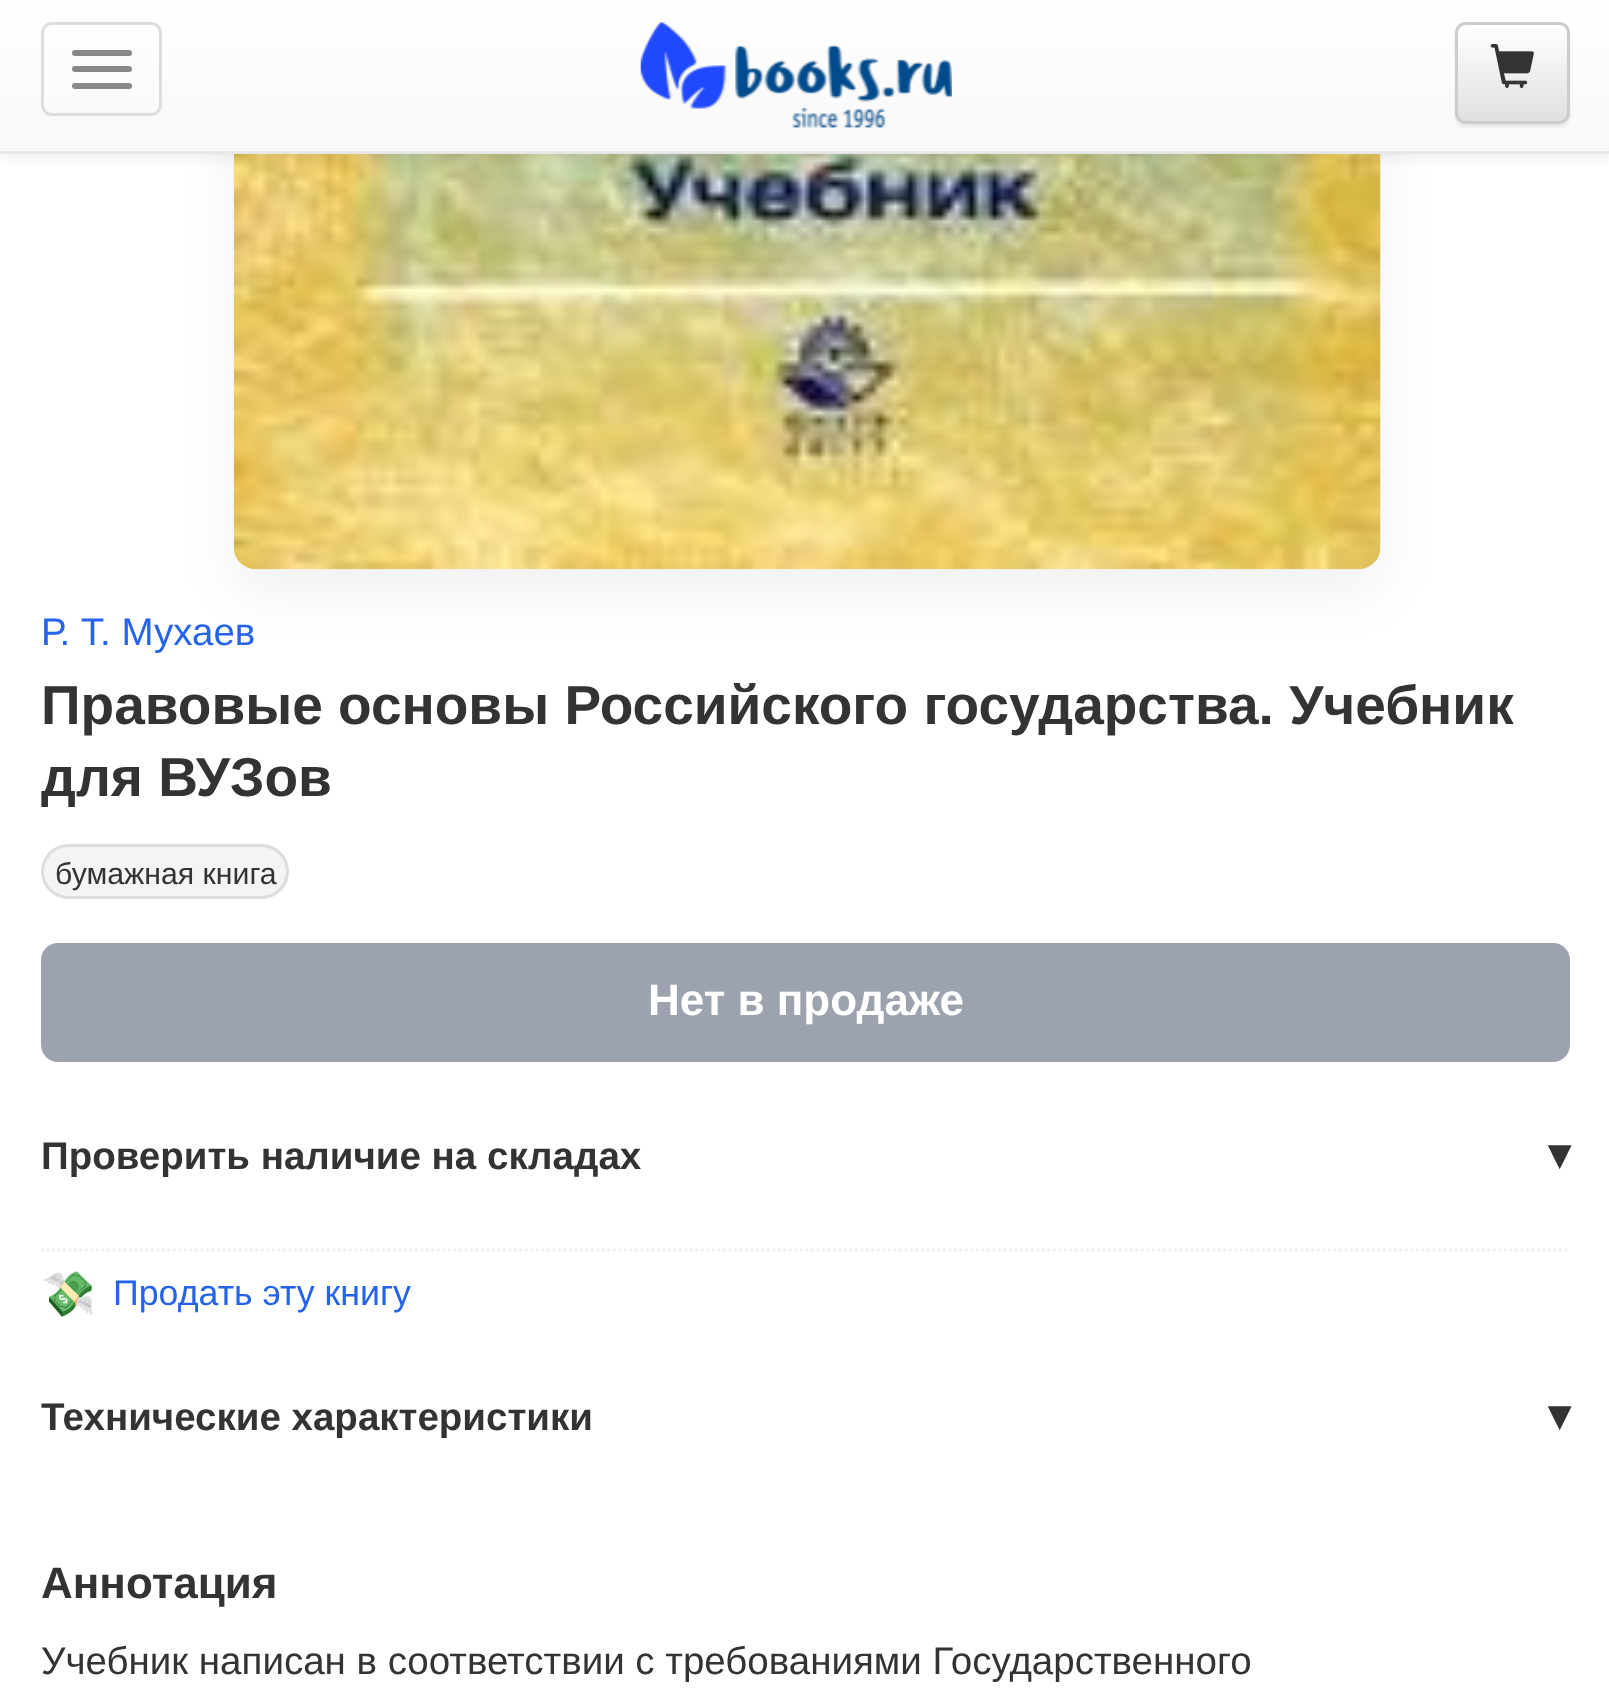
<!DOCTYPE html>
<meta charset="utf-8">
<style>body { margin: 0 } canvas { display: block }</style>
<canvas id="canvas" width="1609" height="1703"></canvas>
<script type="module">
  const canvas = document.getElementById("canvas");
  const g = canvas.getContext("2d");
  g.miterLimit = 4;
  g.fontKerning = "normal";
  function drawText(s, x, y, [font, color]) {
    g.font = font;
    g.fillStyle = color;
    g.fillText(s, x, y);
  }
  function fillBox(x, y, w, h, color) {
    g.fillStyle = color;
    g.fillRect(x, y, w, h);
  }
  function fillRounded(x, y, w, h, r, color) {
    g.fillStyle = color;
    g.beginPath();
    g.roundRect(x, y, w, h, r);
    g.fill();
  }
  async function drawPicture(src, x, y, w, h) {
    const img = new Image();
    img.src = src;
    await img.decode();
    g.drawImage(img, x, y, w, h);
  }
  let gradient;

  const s1 = ["38.5px Liberation Sans", "#2563EB"];
  const s2 = ["bold 55px Liberation Sans", "#333333"];
  const s3 = ["30.25px Liberation Sans", "#333333"];
  const s4 = ["bold 44px Liberation Sans", "#FFFFFF"];
  const s5 = ["bold 38.5px Liberation Sans", "#333333"];
  const s6 = ["bold 44px DejaVu Sans", "#333333"];
  const s7 = ["44px Noto Color Emoji", "#2563EB"];
  const s8 = ["35.75px Liberation Sans", "#2563EB"];
  const s9 = ["bold 44px Liberation Sans", "#333333"];
  const s10 = ["38.5px Liberation Sans", "#333333"];

  fillBox(0, 0, 1609, 1703, "#FFFFFF");
  g.fillStyle = "rgba(0, 0, 0, 0.06)";
  g.filter = "blur(27.5px)";
  g.beginPath();
  g.roundRect(234, -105, 1147, 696, 22);
  g.fill();
  g.filter = "none";
  await drawPicture("pic3.png", 233, 154, 1148, 416);
  g.fillStyle = "rgba(0, 0, 0, 0.07)";
  g.filter = "blur(7px)";
  g.beginPath();
  g.rect(0, 3, 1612, 154);
  g.fill();
  g.filter = "none";
  gradient = g.createLinearGradient(806, 0, 806, 151);
  gradient.addColorStop(0, "#FFFFFF");
  gradient.addColorStop(1, "#F8F8F8");
  g.fillStyle = gradient;
  g.fillRect(0, 0, 1609, 151);
  fillBox(0, 151, 1609, 3, "#E7E7E7");
  g.beginPath();
  g.roundRect(42.5, 23.5, 118, 91, 9.5);
  g.strokeStyle = "#DDDDDD";
  g.lineWidth = 3;
  g.stroke();
  fillRounded(72, 50, 60, 6, 3, "#888888");
  fillRounded(72, 66, 60, 6, 3, "#888888");
  fillRounded(72, 83, 60, 6, 3, "#888888");
  await drawPicture("pic1.png", 640, 22, 312, 106);
  g.fillStyle = "rgba(0, 0, 0, 0.07)";
  g.filter = "blur(1.5px)";
  g.beginPath();
  g.roundRect(1455, 25, 115, 102, 11);
  g.fill();
  g.filter = "none";
  g.save();
  g.beginPath();
  g.roundRect(1455, 22, 115, 102, 11);
  g.clip();
  gradient = g.createLinearGradient(1513, 25, 1513, 121);
  gradient.addColorStop(0, "#FFFFFF");
  gradient.addColorStop(1, "#E0E0E0");
  g.fillStyle = gradient;
  g.fillRect(1455, 25, 115, 96);
  g.restore();
  g.fillStyle = "#FFFFFF";
  g.beginPath();
  g.moveTo(1466, 28);
  g.lineTo(1559, 28);
  g.bezierCurveTo(1564, 28, 1568, 31, 1568, 36);
  g.bezierCurveTo(1568, 21, 1557, 25, 1544, 25);
  g.lineTo(1482, 25);
  g.bezierCurveTo(1469, 25, 1458, 21, 1458, 36);
  g.bezierCurveTo(1458, 31, 1461, 28, 1466, 28);
  g.closePath();
  g.fill();
  g.beginPath();
  g.roundRect(1456.5, 23.5, 112, 99, 9.5);
  g.strokeStyle = "#CCCCCC";
  g.stroke();
  await drawPicture("pic2.png", 1490, 44, 44, 44);
  drawText("Р. Т. Мухаев", 41, 645, s1);
  drawText("Правовые основы Российского государства. Учебник", 41, 724, s2);
  drawText("для ВУЗов", 41, 796, s2);
  g.fillStyle = "#F3F4F6";
  g.beginPath();
  g.roundRect(42.5, 845.5, 245, 52, 26);
  g.fill();
  g.strokeStyle = "#DDDDDD";
  g.stroke();
  drawText("бумажная книга", 55, 884, s3);
  fillRounded(41, 943, 1529, 119, 17, "#9CA3AF");
  drawText("Нет в продаже", 648, 1015, s4);
  drawText("Проверить наличие на складах", 41, 1169, s5);
  drawText("▾", 1548, 1169, s6);
  g.beginPath();
  g.moveTo(41, 1250);
  g.lineTo(1570, 1250);
  g.strokeStyle = "#EEEEEE";
  g.lineWidth = 2.8;
  g.setLineDash([2.75, 2.75]);
  g.stroke();
  drawText("💸", 41, 1309, s7);
  drawText("Продать эту книгу", 113, 1305, s8);
  drawText("Технические характеристики", 41, 1430, s5);
  drawText("▾", 1548, 1430, s6);
  drawText("Аннотация", 41, 1598, s9);
  drawText("Учебник написан в соответствии с требованиями Государственного", 41, 1674, s10);
</script>
